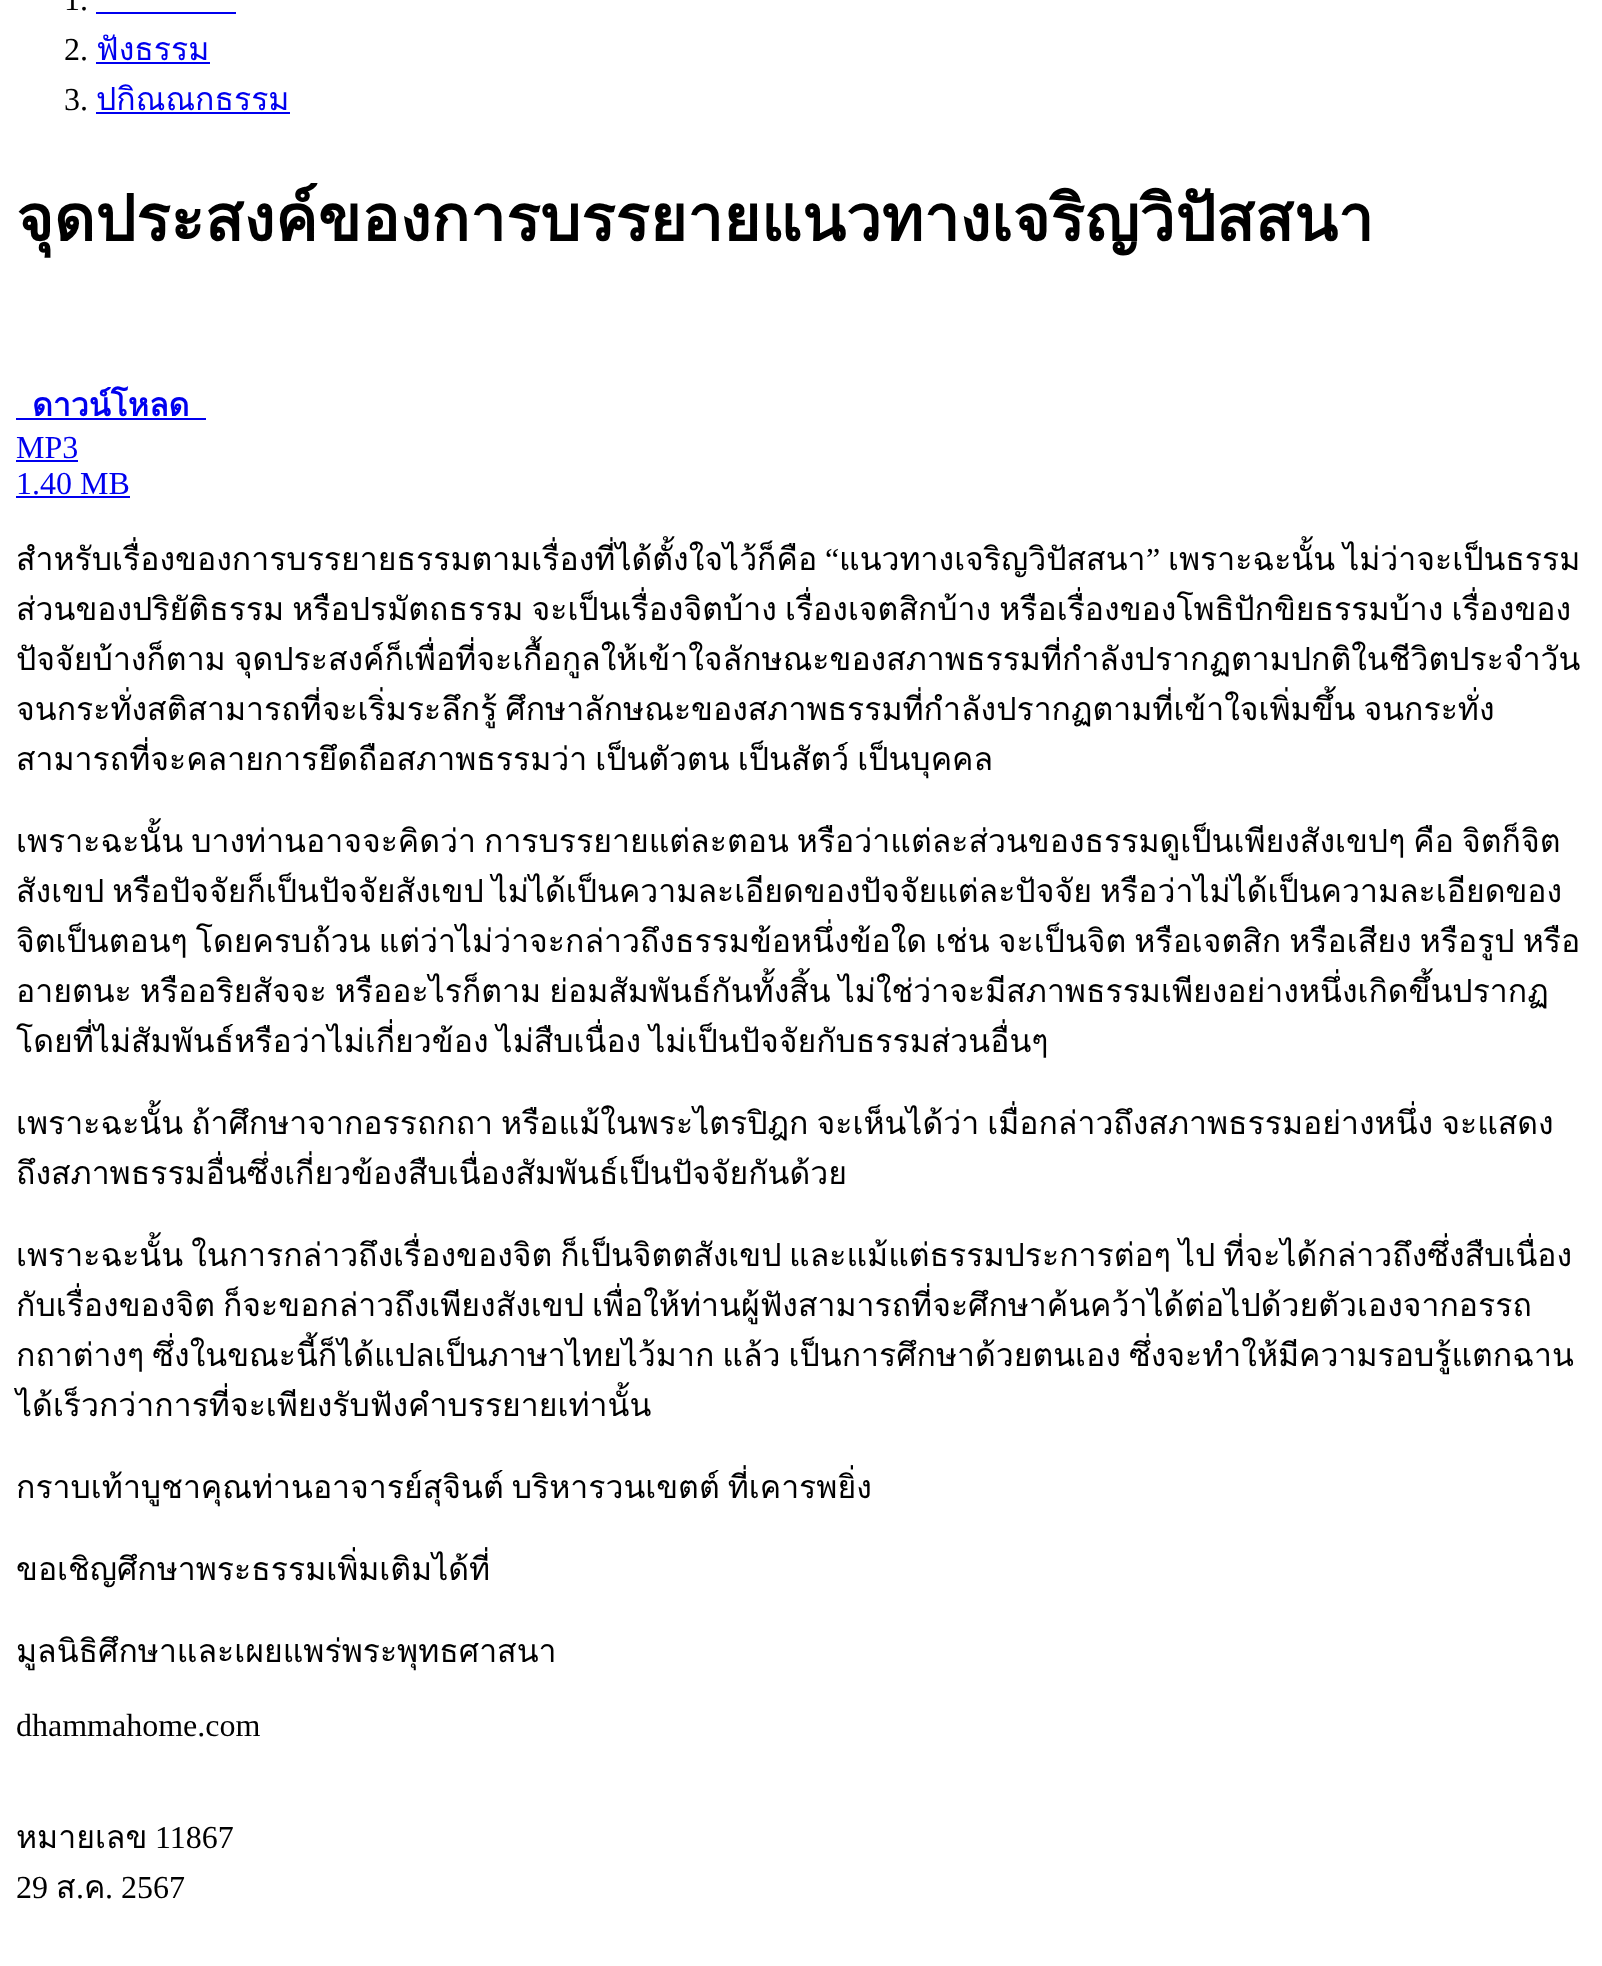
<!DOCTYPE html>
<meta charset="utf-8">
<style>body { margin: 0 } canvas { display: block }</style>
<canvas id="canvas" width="1602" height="1966"></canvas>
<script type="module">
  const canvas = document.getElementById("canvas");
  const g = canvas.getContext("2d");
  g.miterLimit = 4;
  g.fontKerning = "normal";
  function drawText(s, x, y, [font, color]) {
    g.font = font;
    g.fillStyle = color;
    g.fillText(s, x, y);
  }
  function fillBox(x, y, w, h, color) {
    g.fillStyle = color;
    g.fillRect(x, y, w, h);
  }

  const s1 = ["32px Liberation Serif", "#000000"];
  const s2 = ["32px Loma", "#0000EE"];
  const s3 = ["bold 64px Loma", "#000000"];
  const s4 = ["bold 32px Loma", "#0000EE"];
  const s5 = ["32px Liberation Serif", "#0000EE"];
  const s6 = ["32px Loma", "#000000"];

  fillBox(0, 0, 1602, 1966, "#FFFFFF");
  drawText("1.", 64, 10, s1);
  fillBox(96, 12, 140, 2, "#0000EE");
  drawText("2.", 64, 60, s1);
  drawText("ฟังธรรม", 96, 60, s2);
  fillBox(96, 62, 114, 2, "#0000EE");
  drawText("3.", 64, 110, s1);
  drawText("ปกิณณกธรรม", 96, 110, s2);
  fillBox(96, 112, 194, 2, "#0000EE");
  drawText("จุดประสงค์ของการบรรยายแนวทางเจริญวิปัสสนา", 16, 241, s3);
  drawText("ดาวน์โหลด", 32, 416, s4);
  fillBox(16, 418, 190, 2, "#0000EE");
  drawText("MP3", 16, 458, s5);
  fillBox(16, 460, 62, 2, "#0000EE");
  drawText("1.40 MB", 16, 494, s5);
  fillBox(16, 496, 114, 2, "#0000EE");
  drawText("สำหรับเรื่องของการบรรยายธรรมตามเรื่องที่ได้ตั้งใจไว้ก็คือ", 16, 570, s6);
  drawText("“", 825, 570, s1);
  drawText("แนวทางเจริญวิปัสสนา", 839, 570, s6);
  drawText("”", 1146, 570, s1);
  g.wordSpacing = "-2.75px";
  drawText("เพราะฉะนั้น ไม่ว่าจะเป็นธรรม", 1168, 570, s6);
  drawText("ส่วนของปริยัติธรรม หรือปรมัตถธรรม จะเป็นเรื่องจิตบ้าง เรื่องเจตสิกบ้าง หรือเรื่องของโพธิปักขิยธรรมบ้าง เรื่องของ", 16, 620, s6);
  drawText("ปัจจัยบ้างก็ตาม จุดประสงค์ก็เพื่อที่จะเกื้อกูลให้เข้าใจลักษณะของสภาพธรรมที่กำลังปรากฏตามปกติในชีวิตประจำวัน", 16, 670, s6);
  drawText("จนกระทั่งสติสามารถที่จะเริ่มระลึกรู้ ศึกษาลักษณะของสภาพธรรมที่กำลังปรากฏตามที่เข้าใจเพิ่มขึ้น จนกระทั่ง", 16, 720, s6);
  drawText("สามารถที่จะคลายการยึดถือสภาพธรรมว่า เป็นตัวตน เป็นสัตว์ เป็นบุคคล", 16, 770, s6);
  drawText("เพราะฉะนั้น บางท่านอาจจะคิดว่า การบรรยายแต่ละตอน หรือว่าแต่ละส่วนของธรรมดูเป็นเพียงสังเขปๆ คือ จิตก็จิต", 16, 852, s6);
  drawText("สังเขป หรือปัจจัยก็เป็นปัจจัยสังเขป ไม่ได้เป็นความละเอียดของปัจจัยแต่ละปัจจัย หรือว่าไม่ได้เป็นความละเอียดของ", 16, 902, s6);
  drawText("จิตเป็นตอนๆ โดยครบถ้วน แต่ว่าไม่ว่าจะกล่าวถึงธรรมข้อหนึ่งข้อใด เช่น จะเป็นจิต หรือเจตสิก หรือเสียง หรือรูป หรือ", 16, 952, s6);
  drawText("อายตนะ หรืออริยสัจจะ หรืออะไรก็ตาม ย่อมสัมพันธ์กันทั้งสิ้น ไม่ใช่ว่าจะมีสภาพธรรมเพียงอย่างหนึ่งเกิดขึ้นปรากฏ", 16, 1002, s6);
  drawText("โดยที่ไม่สัมพันธ์หรือว่าไม่เกี่ยวข้อง ไม่สืบเนื่อง ไม่เป็นปัจจัยกับธรรมส่วนอื่นๆ", 16, 1052, s6);
  drawText("เพราะฉะนั้น ถ้าศึกษาจากอรรถกถา หรือแม้ในพระไตรปิฎก จะเห็นได้ว่า เมื่อกล่าวถึงสภาพธรรมอย่างหนึ่ง จะแสดง", 16, 1134, s6);
  g.wordSpacing = "0px";
  drawText("ถึงสภาพธรรมอื่นซึ่งเกี่ยวข้องสืบเนื่องสัมพันธ์เป็นปัจจัยกันด้วย", 16, 1184, s6);
  g.wordSpacing = "-2.75px";
  drawText("เพราะฉะนั้น ในการกล่าวถึงเรื่องของจิต ก็เป็นจิตตสังเขป", 16, 1266, s6);
  drawText("และแม้แต่ธรรมประการต่อๆ ไป ที่จะได้กล่าวถึงซึ่งสืบเนื่อง", 789, 1266, s6);
  drawText("กับเรื่องของจิต ก็จะขอกล่าวถึงเพียงสังเขป เพื่อให้ท่านผู้ฟังสามารถที่จะศึกษาค้นคว้าได้ต่อไปด้วยตัวเองจากอรรถ", 16, 1316, s6);
  drawText("กถาต่างๆ ซึ่งในขณะนี้ก็ได้แปลเป็นภาษาไทยไว้มาก แล้ว เป็นการศึกษาด้วยตนเอง ซึ่งจะทำให้มีความรอบรู้แตกฉาน", 16, 1366, s6);
  g.wordSpacing = "0px";
  drawText("ได้เร็วกว่าการที่จะเพียงรับฟังคำบรรยายเท่านั้น", 16, 1416, s6);
  g.wordSpacing = "-2.75px";
  drawText("กราบเท้าบูชาคุณท่านอาจารย์สุจินต์ บริหารวนเขตต์ ที่เคารพยิ่ง", 16, 1498, s6);
  g.wordSpacing = "0px";
  drawText("ขอเชิญศึกษาพระธรรมเพิ่มเติมได้ที่", 16, 1580, s6);
  drawText("มูลนิธิศึกษาและเผยแพร่พระพุทธศาสนา", 16, 1662, s6);
  drawText("dhammahome.com", 16, 1736, s1);
  drawText("หมายเลข", 16, 1848, s6);
  drawText("11867", 155, 1848, s1);
  drawText("29", 16, 1898, s1);
  drawText("ส", 56, 1898, s6);
  drawText(".", 76, 1898, s1);
  drawText("ค", 84, 1898, s6);
  drawText(". 2567", 105, 1898, s1);
</script>
